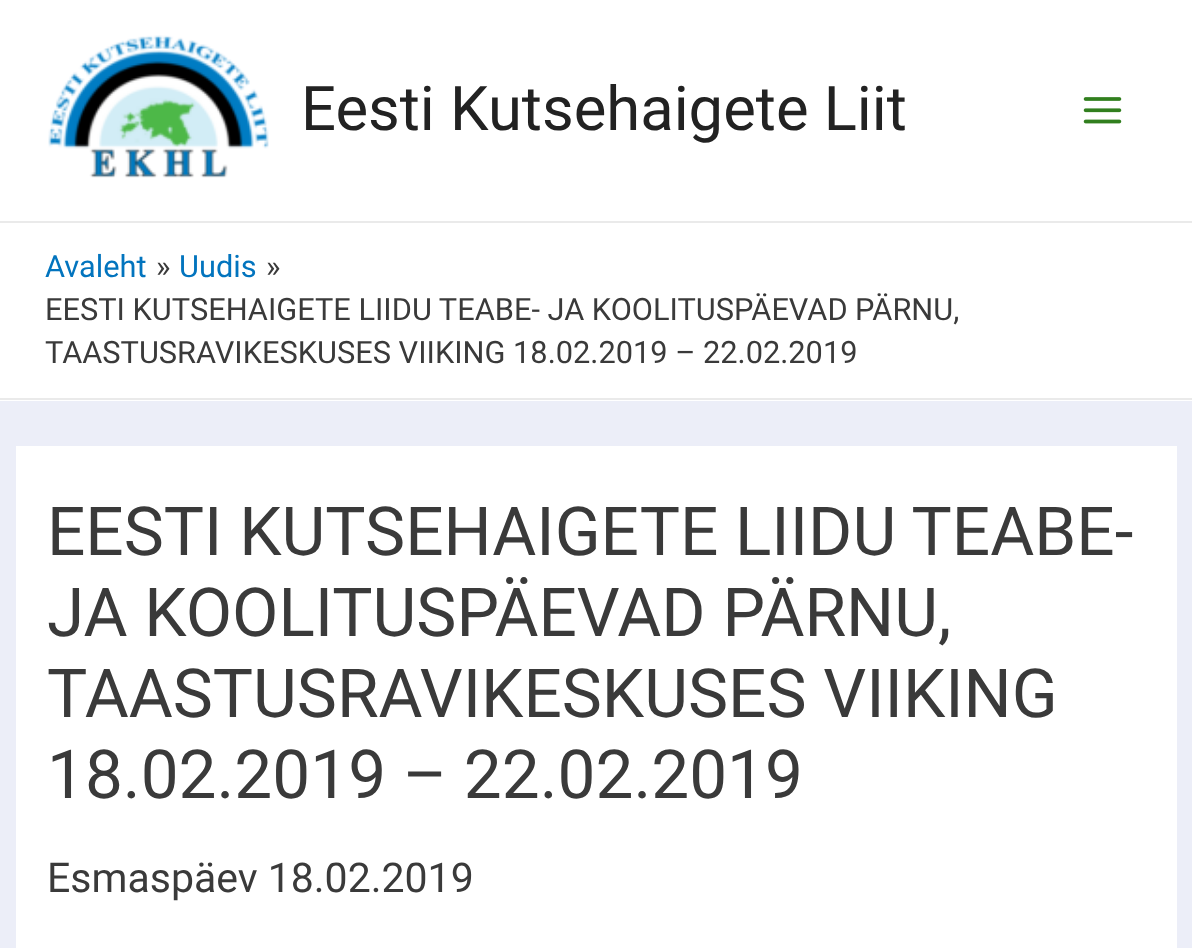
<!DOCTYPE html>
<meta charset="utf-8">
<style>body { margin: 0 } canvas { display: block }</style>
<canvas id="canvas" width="1192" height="948"></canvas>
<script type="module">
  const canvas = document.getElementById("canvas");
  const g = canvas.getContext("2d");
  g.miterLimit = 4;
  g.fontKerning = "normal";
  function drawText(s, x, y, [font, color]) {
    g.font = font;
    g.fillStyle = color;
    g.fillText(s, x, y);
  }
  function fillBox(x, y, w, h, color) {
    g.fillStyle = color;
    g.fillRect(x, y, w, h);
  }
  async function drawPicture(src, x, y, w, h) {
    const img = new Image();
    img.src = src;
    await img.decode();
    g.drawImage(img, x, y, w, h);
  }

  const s1 = ["61.5px Roboto", "#222222"];
  const s2 = ["30.75px Roboto", "#0274BE"];
  const s3 = ["30.75px Roboto", "#3A3A3A"];
  const s4 = ["67.5px Roboto", "#3A3A3A"];
  const s5 = ["41px Roboto", "#3A3A3A"];

  fillBox(0, 0, 1192, 948, "#ECEEF8");
  fillBox(0, 0, 1192, 221, "#FFFFFF");
  fillBox(0, 221, 1192, 2, "#EAEAEA");
  await drawPicture("pic1.png", 48, 35, 221, 143);
  drawText("Eesti Kutsehaigete Liit", 301, 130, s1);
  await drawPicture("pic2.png", 1083, 97, 39, 27);
  fillBox(0, 223, 1192, 178, "#FFFFFF");
  fillBox(0, 398, 1192, 2, "#EAEAEA");
  drawText("Avaleht", 45, 277, s2);
  drawText("»", 156, 277, s3);
  drawText("Uudis", 179, 277, s2);
  drawText("»", 266, 277, s3);
  drawText("EESTI KUTSEHAIGETE LIIDU TEABE- JA KOOLITUSPÄEVAD", 45, 320, s3);
  drawText("PÄRNU,", 855, 320, s3);
  drawText("TAASTUSRAVIKESKUSES VIIKING 18.02.2019 – 22.02.2019", 45, 363, s3);
  fillBox(16, 446, 1161, 502, "#FFFFFF");
  drawText("EESTI KUTSEHAIGETE LIIDU TEABE-", 47, 555, s4);
  drawText("JA KOOLITUSPÄEVAD PÄRNU,", 47, 636, s4);
  drawText("TAASTUSRAVIKESKUSES VIIKING", 47, 717, s4);
  drawText("18.02.2019 – 22.02.2019", 47, 798, s4);
  drawText("Esmaspäev 18.02.2019", 47, 892, s5);
</script>
